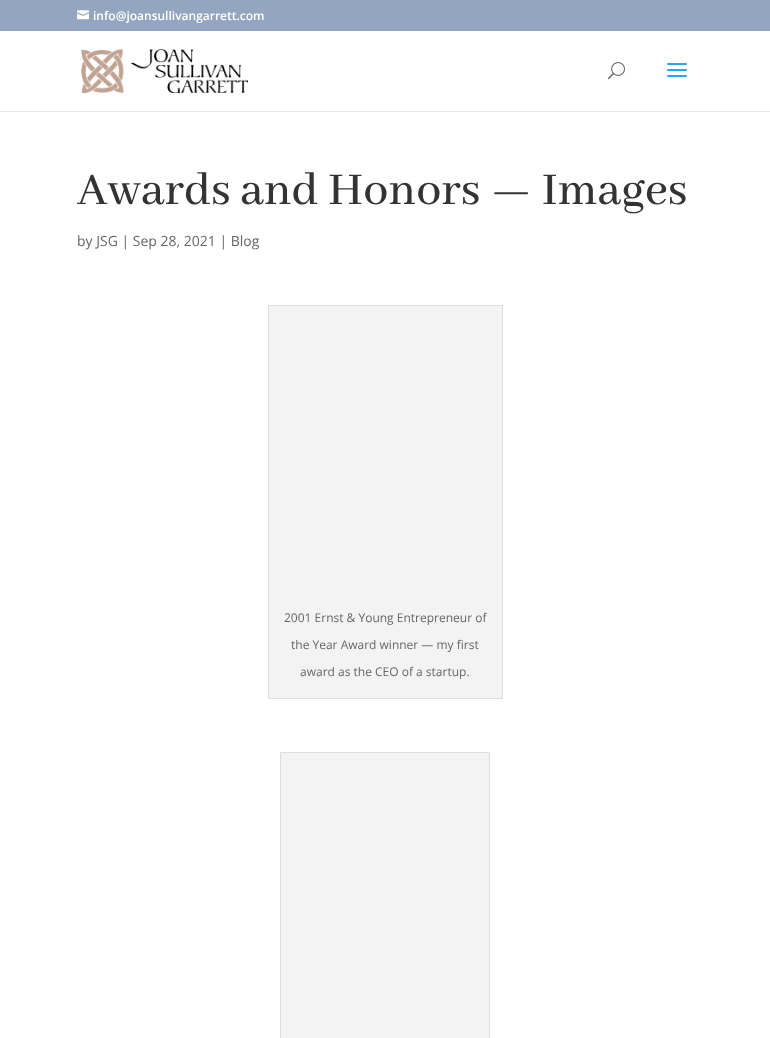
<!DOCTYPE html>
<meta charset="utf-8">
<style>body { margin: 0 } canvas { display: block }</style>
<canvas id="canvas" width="770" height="1038"></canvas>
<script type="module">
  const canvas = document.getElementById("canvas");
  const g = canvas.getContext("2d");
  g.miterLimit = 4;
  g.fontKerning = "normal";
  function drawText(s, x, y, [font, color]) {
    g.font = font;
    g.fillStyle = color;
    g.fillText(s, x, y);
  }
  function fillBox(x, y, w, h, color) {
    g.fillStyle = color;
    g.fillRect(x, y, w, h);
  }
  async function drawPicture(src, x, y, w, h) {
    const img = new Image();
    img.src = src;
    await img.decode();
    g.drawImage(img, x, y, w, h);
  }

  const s1 = ["600 12px Open Sans", "#FFFFFF"];
  const s2 = ["500 50px Abhaya Libre Medium", "#333333"];
  const s3 = ["14px Open Sans", "#666666"];
  const s4 = ["12px Open Sans", "#666666"];

  fillBox(0, 0, 770, 1038, "#FFFFFF");
  fillBox(0, 0, 770, 31, "#94A6BF");
  await drawPicture("pic1.png", 77, 10, 12, 10);
  drawText("info@joansullivangarrett.com", 93, 20, s1);
  fillBox(0, 111, 770, 1, "#E6E6E6");
  await drawPicture("pic2.png", 81, 49, 167, 44);
  await drawPicture("pic3.png", 608, 62, 17, 18);
  await drawPicture("pic4.png", 667, 63, 20, 14);
  drawText("Awards and Honors — Images", 77, 204, s2);
  drawText("by JSG | Sep 28, 2021 | Blog", 77, 246, s3);
  g.fillStyle = "#F3F3F3";
  g.beginPath();
  g.rect(268.5, 305.5, 234, 393);
  g.fill();
  g.strokeStyle = "#DDDDDD";
  g.stroke();
  drawText("2001 Ernst & Young Entrepreneur of", 284, 622, s4);
  drawText("the Year Award winner — my first", 291, 649, s4);
  drawText("award as the CEO of a startup.", 300, 676, s4);
  g.fillStyle = "#F3F3F3";
  g.beginPath();
  g.rect(280.5, 752.5, 209, 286);
  g.fill();
  g.stroke();
</script>
